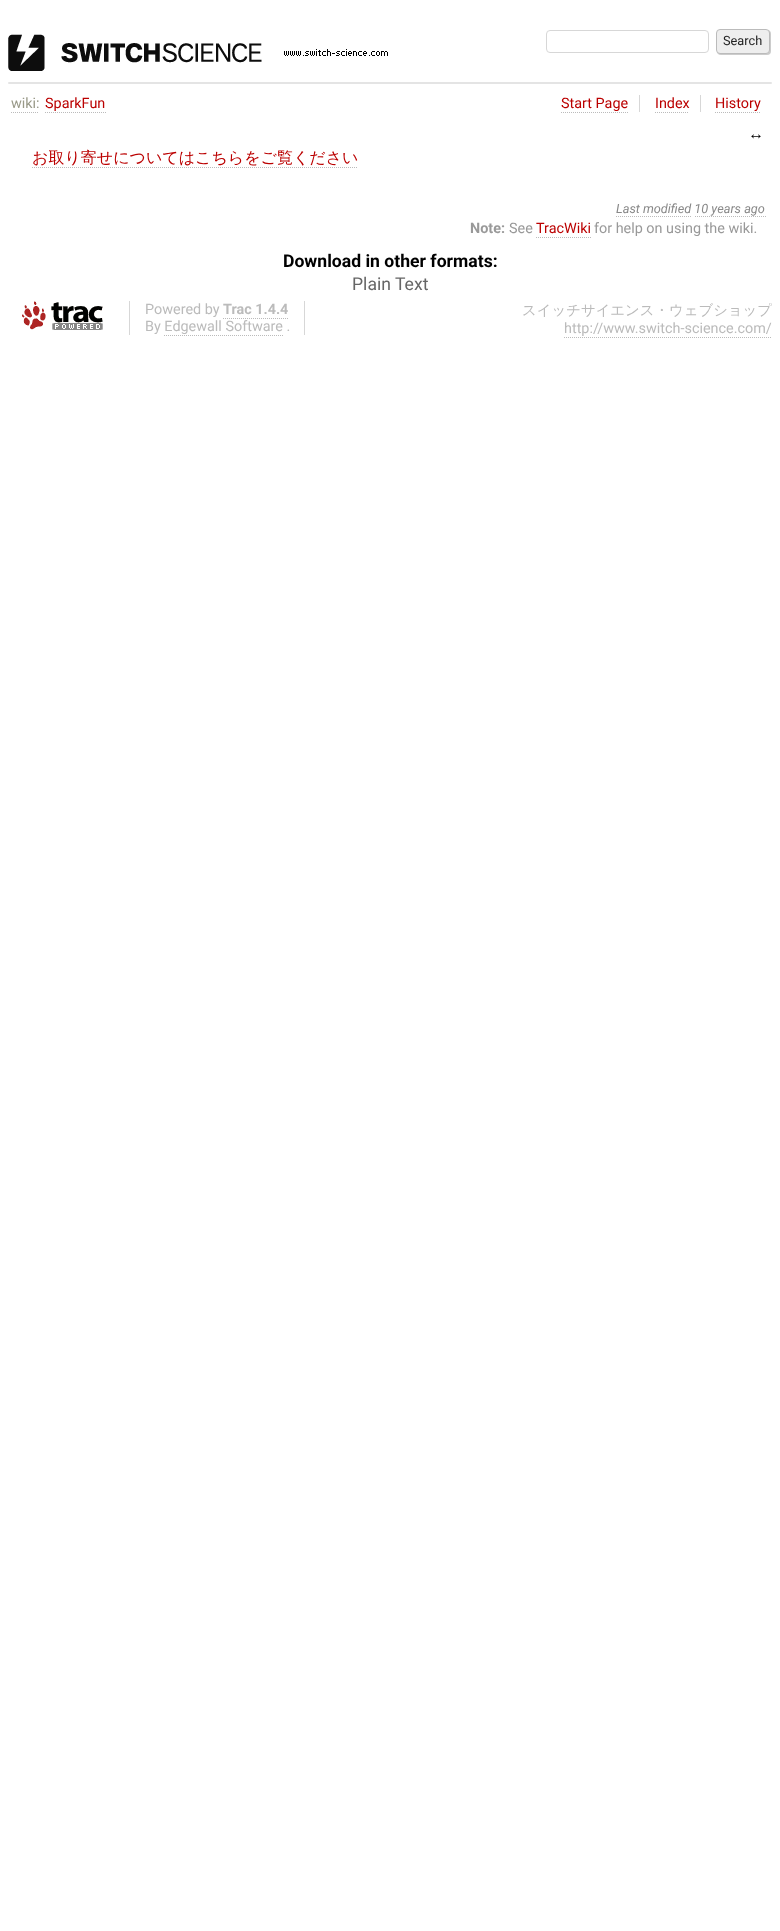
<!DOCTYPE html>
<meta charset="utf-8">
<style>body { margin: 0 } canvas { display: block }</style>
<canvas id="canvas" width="780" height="1931"></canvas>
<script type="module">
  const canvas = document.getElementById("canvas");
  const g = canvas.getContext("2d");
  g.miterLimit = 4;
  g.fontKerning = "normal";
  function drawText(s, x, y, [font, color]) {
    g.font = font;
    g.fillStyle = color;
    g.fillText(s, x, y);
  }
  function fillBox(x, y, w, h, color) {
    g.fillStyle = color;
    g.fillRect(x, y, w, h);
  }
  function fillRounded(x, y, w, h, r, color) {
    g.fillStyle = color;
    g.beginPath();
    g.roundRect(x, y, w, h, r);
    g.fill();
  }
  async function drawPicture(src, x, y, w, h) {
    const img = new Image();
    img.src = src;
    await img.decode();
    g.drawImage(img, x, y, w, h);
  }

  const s1 = ["12.75px Roboto", "#222222"];
  const s2 = ["14.4px Roboto", "#999988"];
  const s3 = ["14.4px Roboto", "#BB0000"];
  const s4 = ["16px Liberation Sans", "#000000"];
  const s5 = ["500 16px WenQuanYi Zen Hei", "#BB0000"];
  const s6 = ["italic 12.75px Roboto", "#888888"];
  const s7 = ["bold 14.4px Roboto", "#999999"];
  const s8 = ["14.4px Roboto", "#999999"];
  const s9 = ["bold 17.6px Roboto", "#000000"];
  const s10 = ["17.6px Roboto", "#666666"];
  const s11 = ["14.4px Roboto", "#BBBBBB"];
  const s12 = ["bold 14.4px Roboto", "#BBBBBB"];
  const s13 = ["500 14.4px WenQuanYi Zen Hei", "#BBBBBB"];

  fillBox(0, 0, 780, 1931, "#FFFFFF");
  await drawPicture("pic1.png", 8, 34, 380, 37);
  g.beginPath();
  g.roundRect(546.5, 30.5, 162, 22, 3.5);
  g.strokeStyle = "#D7D7D7";
  g.stroke();
  g.fillStyle = "#CCCCCC";
  g.filter = "blur(0.5px)";
  g.beginPath();
  g.roundRect(717, 30, 54, 25, 4);
  g.fill();
  g.filter = "none";
  g.fillStyle = "#EEEEEE";
  g.beginPath();
  g.roundRect(716.5, 29.5, 53, 24, 3.5);
  g.fill();
  g.strokeStyle = "#BBBBBB";
  g.stroke();
  drawText("Search", 723, 45, s1);
  fillRounded(8, 82, 764, 2, 1, "#E4E4E4");
  g.beginPath();
  g.moveTo(11, 112.5);
  g.lineTo(39, 112.5);
  g.setLineDash([1, 1]);
  g.stroke();
  drawText("wiki:", 11, 108, s2);
  g.beginPath();
  g.moveTo(45, 112.5);
  g.lineTo(106, 112.5);
  g.stroke();
  drawText("SparkFun", 45, 108, s3);
  fillBox(639, 95, 1, 17, "#D7D7D7");
  drawText("Start Page", 561, 108, s3);
  g.beginPath();
  g.moveTo(561, 112.5);
  g.lineTo(628, 112.5);
  g.stroke();
  fillBox(700, 95, 1, 17, "#D7D7D7");
  drawText("Index", 655, 108, s3);
  g.beginPath();
  g.moveTo(655, 112.5);
  g.lineTo(689, 112.5);
  g.stroke();
  drawText("History", 715, 108, s3);
  g.beginPath();
  g.moveTo(715, 112.5);
  g.lineTo(761, 112.5);
  g.stroke();
  drawText("↔", 748, 139, s4);
  drawText("お取り寄せについてはこちらをご覧ください", 32, 163, s5);
  g.beginPath();
  g.moveTo(32, 167.5);
  g.lineTo(358, 167.5);
  g.stroke();
  drawText("Last modified 10 years ago", 616, 213, s6);
  g.beginPath();
  g.moveTo(616, 216.5);
  g.lineTo(692, 216.5);
  g.stroke();
  g.beginPath();
  g.moveTo(695, 216.5);
  g.lineTo(766, 216.5);
  g.stroke();
  drawText("Note:", 470, 233, s7);
  drawText("See", 509, 233, s8);
  drawText("TracWiki", 536, 233, s3);
  g.beginPath();
  g.moveTo(536, 237.5);
  g.lineTo(591, 237.5);
  g.stroke();
  drawText("for help on using the wiki.", 594, 233, s8);
  drawText("Download in other formats:", 283, 267, s9);
  drawText("Plain Text", 352, 290, s10);
  await drawPicture("pic2.png", 22, 301, 81, 29);
  fillBox(304, 301, 1, 34, "#D7D7D7");
  fillBox(129, 301, 1, 34, "#D7D7D7");
  drawText("Powered by", 145, 314, s11);
  drawText("Trac 1.4.4", 223, 314, s12);
  g.beginPath();
  g.moveTo(223, 318.5);
  g.lineTo(288, 318.5);
  g.stroke();
  drawText("By Edgewall Software .", 145, 331, s11);
  g.beginPath();
  g.moveTo(164, 335.5);
  g.lineTo(283, 335.5);
  g.stroke();
  drawText("スイッチサイエンス・ウェブショップ", 522, 315, s13);
  drawText("http://www.switch-science.com/", 564, 333, s11);
  g.beginPath();
  g.moveTo(564, 337.5);
  g.lineTo(772, 337.5);
  g.stroke();
</script>
